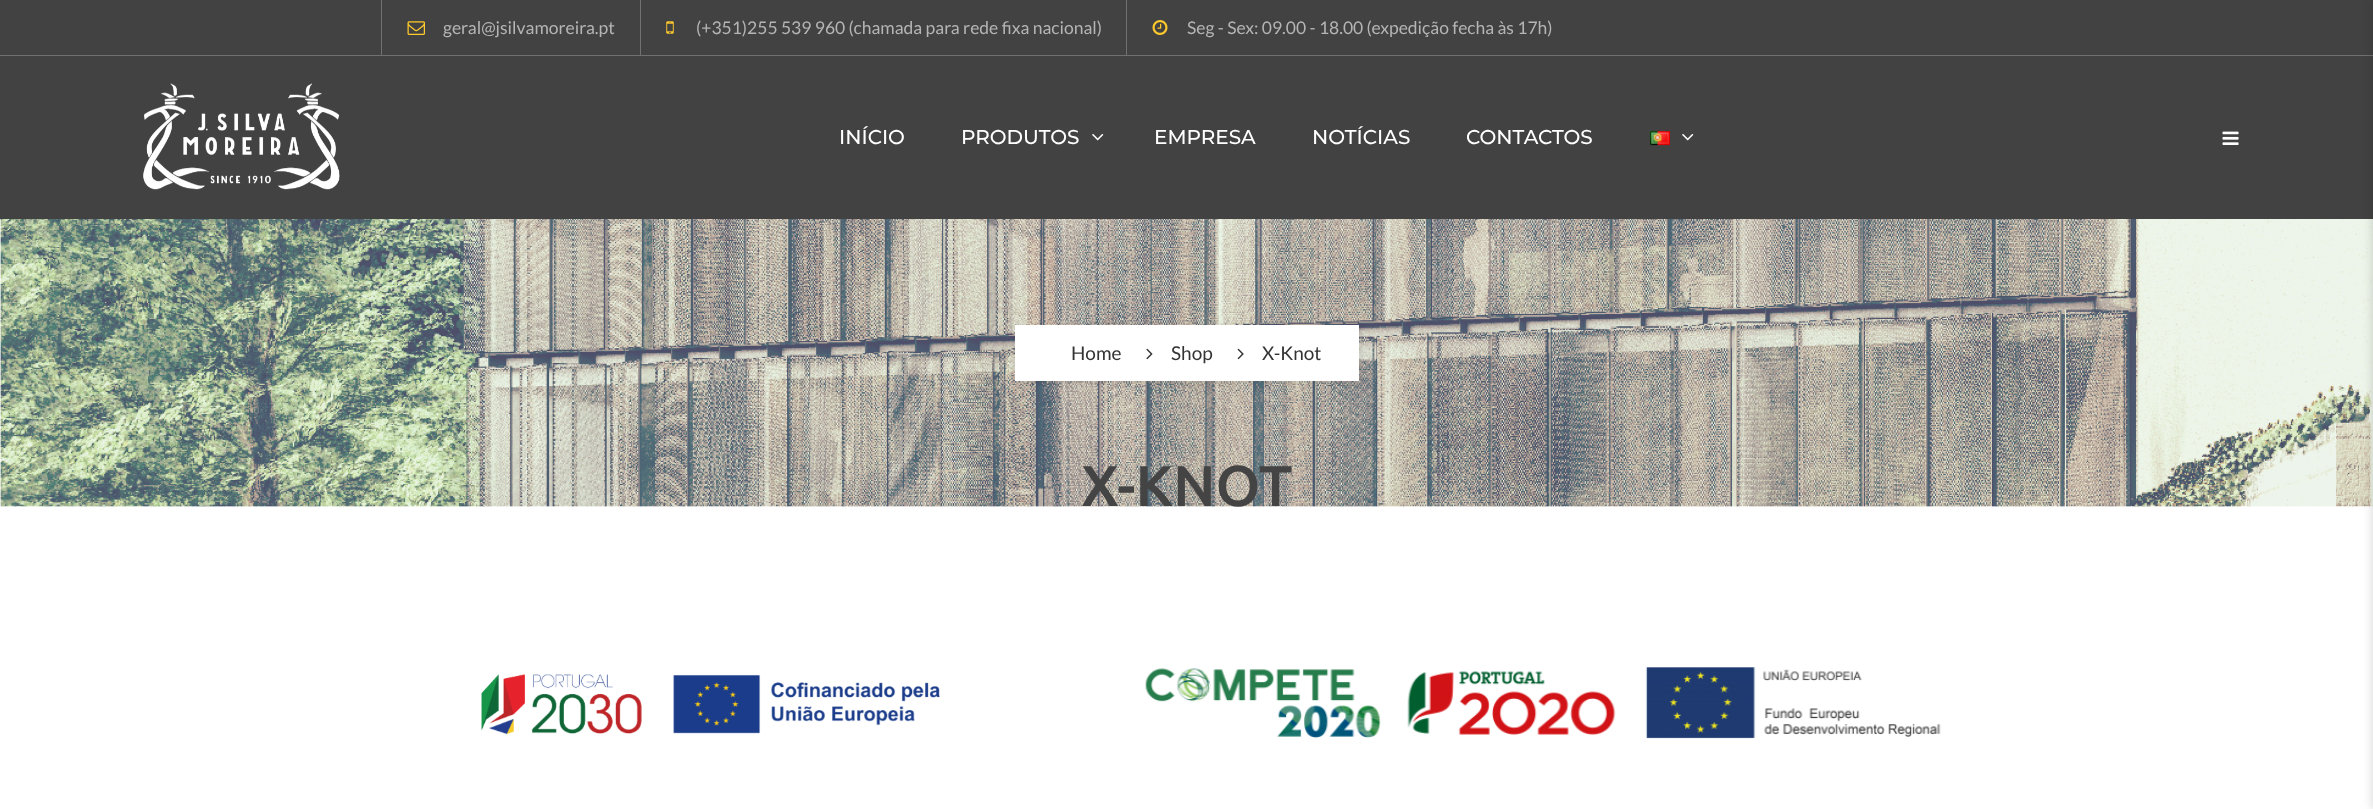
<!DOCTYPE html>
<meta charset="utf-8">
<style>body { margin: 0 } canvas { display: block }</style>
<canvas id="canvas" width="2373" height="809"></canvas>
<script type="module">
  const canvas = document.getElementById("canvas");
  const g = canvas.getContext("2d");
  g.miterLimit = 4;
  g.fontKerning = "normal";
  function drawText(s, x, y, [font, color]) {
    g.font = font;
    g.fillStyle = color;
    g.fillText(s, x, y);
  }
  function fillBox(x, y, w, h, color) {
    g.fillStyle = color;
    g.fillRect(x, y, w, h);
  }
  async function drawPicture(src, x, y, w, h) {
    const img = new Image();
    img.src = src;
    await img.decode();
    g.drawImage(img, x, y, w, h);
  }

  const s1 = ["17.5px Lato", "#B5B5B5"];
  const s2 = ["500 20px Montserrat", "#FFFFFF"];
  const s3 = ["19px Lato", "#333333"];
  const s4 = ["500 57.5px Ubuntu", "#444444"];

  fillBox(0, 0, 2373, 809, "#FFFFFF");
  fillBox(0, 0, 2373, 55, "#424242");
  fillBox(0, 55, 2373, 1, "#717171");
  fillBox(381, 0, 1, 55, "#717171");
  await drawPicture("pic1.png", 407, 21, 18, 14);
  drawText("geral@jsilvamoreira.pt", 443, 34, s1);
  fillBox(640, 0, 1, 55, "#717171");
  await drawPicture("pic2.png", 666, 21, 8, 13);
  drawText("(+351)255 539 960 (chamada para rede fixa nacional)", 696, 34, s1);
  fillBox(1126, 0, 1, 55, "#717171");
  await drawPicture("pic3.png", 1152, 20, 16, 15);
  drawText("Seg - Sex: 09.00 - 18.00 (expedição fecha às 17h)", 1187, 34, s1);
  fillBox(0, 56, 2373, 163, "#424242");
  await drawPicture("pic4.png", 143, 83, 197, 107);
  drawText("INÍCIO", 839, 144, s2);
  drawText("PRODUTOS", 961, 144, s2);
  await drawPicture("pic5.png", 1092, 133, 12, 8);
  drawText("EMPRESA", 1154, 144, s2);
  drawText("NOTÍCIAS", 1312, 144, s2);
  drawText("CONTACTOS", 1466, 144, s2);
  await drawPicture("pic6.png", 1650, 131, 20, 15);
  await drawPicture("pic5.png", 1682, 133, 12, 8);
  await drawPicture("pic7.png", 2222, 131, 17, 14);
  await drawPicture("pic10.png", 0, 219, 2373, 288);
  g.fillStyle = "rgba(0, 0, 0, 0.1)";
  g.filter = "blur(3px)";
  g.beginPath();
  g.rect(1016, 326, 344, 57);
  g.fill();
  g.filter = "none";
  fillBox(1015, 325, 344, 56, "#FFFFFF");
  drawText("Home", 1071, 360, s3);
  await drawPicture("pic8.png", 1146, 348, 7, 12);
  drawText("Shop", 1171, 360, s3);
  await drawPicture("pic9.png", 1237, 348, 7, 12);
  drawText("X-Knot", 1262, 360, s3);
  drawText("X-KNOT", 1081, 506, s4);
  await drawPicture("pic11.png", 481, 674, 459, 61);
  await drawPicture("pic12.png", 1145, 667, 796, 72);
  g.fillStyle = "rgba(0, 0, 0, 0.2)";
  g.filter = "blur(6px)";
  g.beginPath();
  g.rect(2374, 0, 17, 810);
  g.fill();
  g.filter = "none";
</script>
